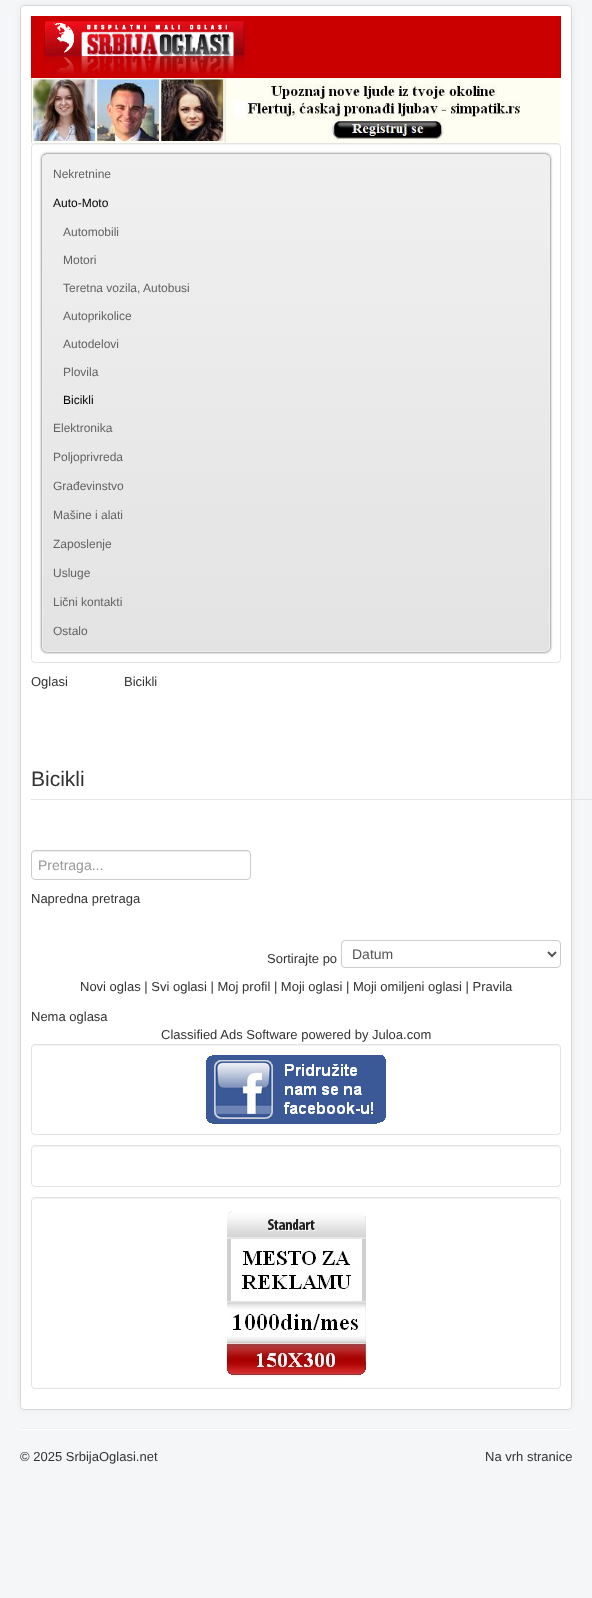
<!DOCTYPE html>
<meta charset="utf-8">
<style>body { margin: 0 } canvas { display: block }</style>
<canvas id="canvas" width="592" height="1598"></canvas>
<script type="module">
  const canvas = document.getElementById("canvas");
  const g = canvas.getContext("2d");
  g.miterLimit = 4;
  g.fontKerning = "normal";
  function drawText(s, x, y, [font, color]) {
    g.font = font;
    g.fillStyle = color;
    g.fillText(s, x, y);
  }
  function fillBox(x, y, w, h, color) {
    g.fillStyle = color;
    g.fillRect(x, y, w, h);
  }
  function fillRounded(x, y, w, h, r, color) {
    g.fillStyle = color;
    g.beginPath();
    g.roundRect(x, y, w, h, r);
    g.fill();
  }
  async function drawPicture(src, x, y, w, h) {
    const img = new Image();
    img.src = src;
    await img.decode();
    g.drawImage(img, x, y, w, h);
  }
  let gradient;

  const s1 = ["12px Liberation Sans", "#636363"];
  const s2 = ["12px Liberation Sans", "#000000"];
  const s3 = ["13px Liberation Sans", "#333333"];
  const s4 = ["21px Liberation Sans", "#333333"];
  const s5 = ["14px Liberation Sans", "#999999"];
  const s6 = ["14px Liberation Sans", "#555555"];

  fillBox(0, 0, 592, 1598, "#F4F6F7");
  g.fillStyle = "rgba(0, 0, 0, 0.05)";
  g.filter = "blur(3px)";
  g.beginPath();
  g.roundRect(20, 5, 552, 1405, 4);
  g.fill();
  g.filter = "none";
  fillRounded(20, 5, 552, 1405, 4, "#FFFFFF");
  g.beginPath();
  g.roundRect(20.5, 5.5, 551, 1404, 3.5);
  g.strokeStyle = "rgba(0, 0, 0, 0.15)";
  g.stroke();
  await drawPicture("pic1.png", 31, 16, 530, 62);
  await drawPicture("pic2.png", 31, 78, 530, 65);
  g.fillStyle = "#F2F2F2";
  g.beginPath();
  g.moveTo(35, 145);
  g.lineTo(557, 145);
  g.bezierCurveTo(559, 145, 560, 146, 560, 148);
  g.lineTo(559, 145);
  g.lineTo(557, 144);
  g.lineTo(35, 144);
  g.bezierCurveTo(33, 144, 32, 146, 32, 148);
  g.bezierCurveTo(32, 146, 33, 145, 35, 145);
  g.closePath();
  g.fill();
  g.beginPath();
  g.roundRect(31.5, 143.5, 529, 519, 3.5);
  g.strokeStyle = "#E3E3E3";
  g.stroke();
  g.fillStyle = "#444444";
  g.filter = "blur(1.5px)";
  g.beginPath();
  g.roundRect(42, 154, 508, 498, 5);
  g.fill();
  g.filter = "none";
  g.save();
  g.beginPath();
  g.roundRect(42, 154, 508, 498, 5);
  g.clip();
  gradient = g.createLinearGradient(296, 155, 296, 651);
  gradient.addColorStop(0, "#F0F0F0");
  gradient.addColorStop(1, "#E3E3E3");
  g.fillStyle = gradient;
  g.fillRect(42, 155, 508, 496);
  g.restore();
  g.beginPath();
  g.roundRect(42.5, 154.5, 507, 497, 4.5);
  g.strokeStyle = "#EFEFEF";
  g.stroke();
  drawText("Nekretnine", 53, 178, s1);
  drawText("Auto-Moto", 53, 207, s2);
  drawText("Automobili", 63, 236, s1);
  drawText("Motori", 63, 264, s1);
  drawText("Teretna vozila, Autobusi", 63, 292, s1);
  drawText("Autoprikolice", 63, 320, s1);
  drawText("Autodelovi", 63, 348, s1);
  drawText("Plovila", 63, 376, s1);
  drawText("Bicikli", 63, 404, s2);
  drawText("Elektronika", 53, 432, s1);
  drawText("Poljoprivreda", 53, 461, s1);
  drawText("Građevinstvo", 53, 490, s1);
  drawText("Mašine i alati", 53, 519, s1);
  drawText("Zaposlenje", 53, 548, s1);
  drawText("Usluge", 53, 577, s1);
  drawText("Lični kontakti", 53, 606, s1);
  drawText("Ostalo", 53, 635, s1);
  drawText("Oglasi", 31, 686, s3);
  drawText("Bicikli", 124, 686, s3);
  fillBox(31, 799, 561, 1, "#E5E5E5");
  drawText("Bicikli", 31, 786, s4);
  g.fillStyle = "#ECECEC";
  g.beginPath();
  g.moveTo(35, 852);
  g.lineTo(247, 852);
  g.bezierCurveTo(249, 852, 250, 853, 250, 855);
  g.lineTo(250, 854);
  g.bezierCurveTo(250, 852, 249, 851, 247, 851);
  g.lineTo(35, 851);
  g.bezierCurveTo(33, 851, 32, 852, 32, 854);
  g.lineTo(32, 855);
  g.bezierCurveTo(32, 853, 33, 852, 35, 852);
  g.closePath();
  g.fill();
  g.beginPath();
  g.roundRect(31.5, 850.5, 219, 29, 3.5);
  g.strokeStyle = "#CCCCCC";
  g.stroke();
  drawText("Pretraga...", 38, 870, s5);
  drawText("Napredna pretraga", 31, 903, s3);
  drawText("Sortirajte po", 267, 963, s3);
  g.beginPath();
  g.roundRect(341.5, 940.5, 219, 27, 3.5);
  g.stroke();
  g.beginPath();
  g.moveTo(548, 952);
  g.lineTo(552, 956);
  g.lineTo(556, 952);
  g.strokeStyle = "#555555";
  g.lineWidth = 2;
  g.stroke();
  drawText("Datum", 352, 959, s6);
  drawText("Novi oglas | Svi oglasi | Moj profil | Moji oglasi | Moji omiljeni oglasi | Pravila", 80, 991, s3);
  drawText("Nema oglasa", 31, 1021, s3);
  drawText("Classified Ads Software powered by Juloa.com", 161, 1039, s3);
  g.fillStyle = "#F2F2F2";
  g.beginPath();
  g.moveTo(35, 1046);
  g.lineTo(557, 1046);
  g.bezierCurveTo(559, 1046, 560, 1047, 560, 1049);
  g.lineTo(559, 1046);
  g.lineTo(557, 1045);
  g.lineTo(35, 1045);
  g.bezierCurveTo(33, 1045, 32, 1047, 32, 1049);
  g.bezierCurveTo(32, 1047, 33, 1046, 35, 1046);
  g.closePath();
  g.fill();
  g.beginPath();
  g.roundRect(31.5, 1044.5, 529, 90, 3.5);
  g.strokeStyle = "#E3E3E3";
  g.lineWidth = 1;
  g.stroke();
  await drawPicture("pic3.png", 206, 1055, 180, 69);
  g.beginPath();
  g.moveTo(35, 1147);
  g.lineTo(557, 1147);
  g.bezierCurveTo(559, 1147, 560, 1148, 560, 1150);
  g.lineTo(559, 1147);
  g.lineTo(557, 1146);
  g.lineTo(35, 1146);
  g.bezierCurveTo(33, 1146, 32, 1148, 32, 1150);
  g.bezierCurveTo(32, 1148, 33, 1147, 35, 1147);
  g.closePath();
  g.fill();
  g.beginPath();
  g.roundRect(31.5, 1145.5, 529, 41, 3.5);
  g.stroke();
  g.beginPath();
  g.moveTo(35, 1199);
  g.lineTo(557, 1199);
  g.bezierCurveTo(559, 1199, 560, 1200, 560, 1202);
  g.lineTo(559, 1199);
  g.lineTo(557, 1198);
  g.lineTo(35, 1198);
  g.bezierCurveTo(33, 1198, 32, 1200, 32, 1202);
  g.bezierCurveTo(32, 1200, 33, 1199, 35, 1199);
  g.closePath();
  g.fill();
  g.beginPath();
  g.roundRect(31.5, 1197.5, 529, 191, 3.5);
  g.stroke();
  await drawPicture("pic4.png", 221, 1211, 150, 167);
  fillBox(20, 1428, 552, 1, "#EEEEEE");
  fillBox(20, 1429, 552, 1, "#FFFFFF");
  drawText("© 2025 SrbijaOglasi.net", 20, 1461, s3);
  drawText("Na vrh stranice", 485, 1461, s3);
</script>
